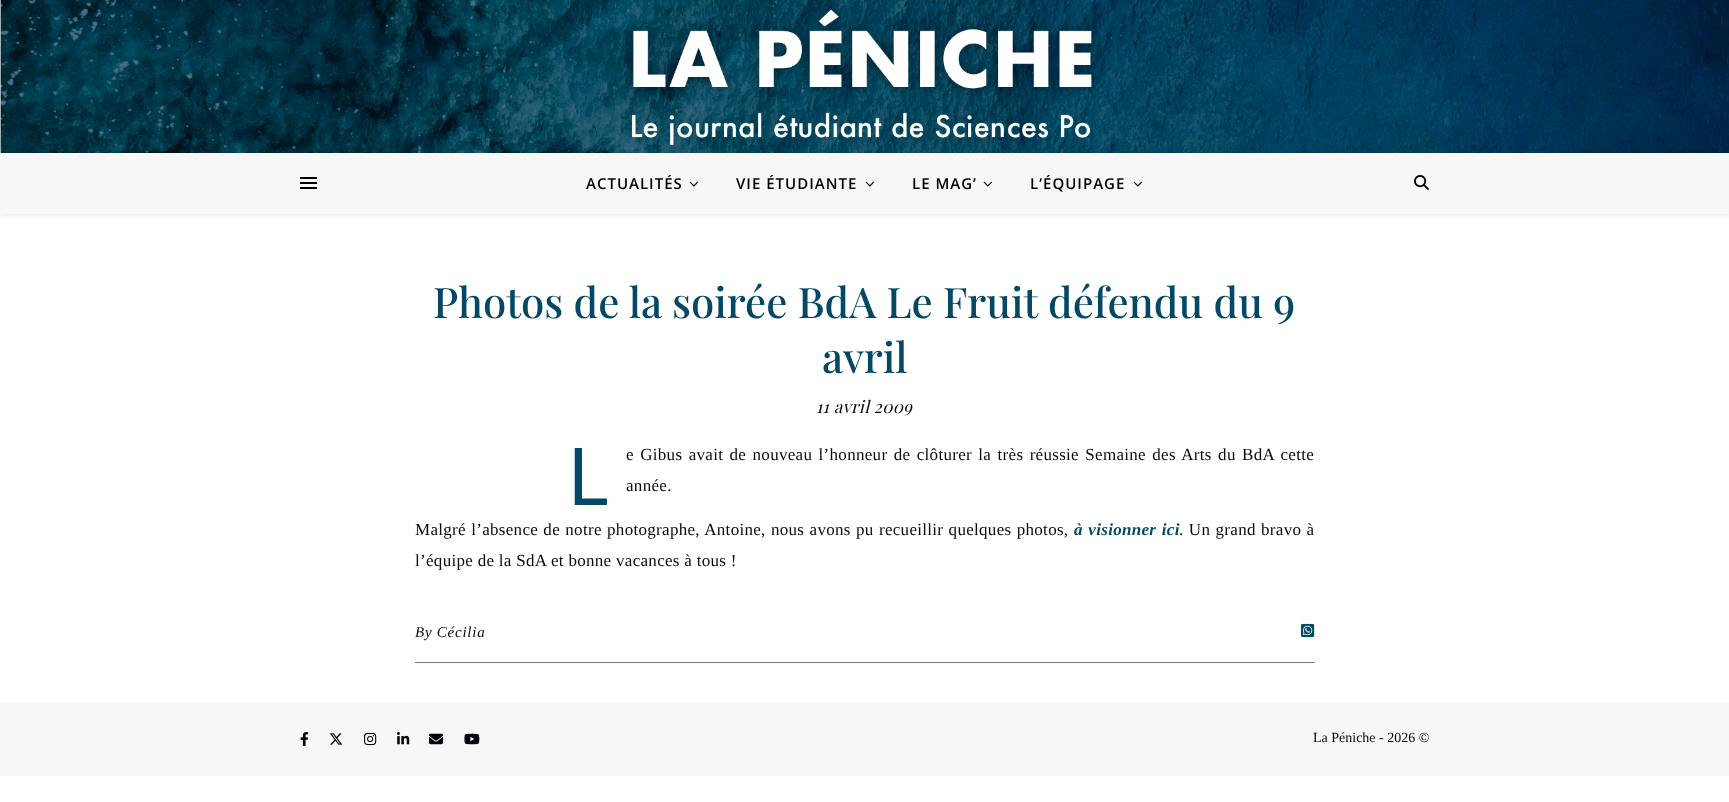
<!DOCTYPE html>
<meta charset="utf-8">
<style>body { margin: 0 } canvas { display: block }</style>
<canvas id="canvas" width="1729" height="802"></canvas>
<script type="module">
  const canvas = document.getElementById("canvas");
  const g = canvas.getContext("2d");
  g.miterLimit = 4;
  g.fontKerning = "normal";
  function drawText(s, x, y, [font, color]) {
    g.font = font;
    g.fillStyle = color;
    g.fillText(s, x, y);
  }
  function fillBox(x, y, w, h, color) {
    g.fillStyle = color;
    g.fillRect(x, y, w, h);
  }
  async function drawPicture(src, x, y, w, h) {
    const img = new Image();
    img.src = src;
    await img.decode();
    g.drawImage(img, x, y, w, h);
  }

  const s1 = ["600 15px Open Sans", "#000000"];
  const s2 = ["500 42px Playfair Display", "#034865"];
  const s3 = ["italic 17px Playfair Display", "#0A0A0A"];
  const s4 = ["80px Noto Sans", "#034865"];
  const s5 = ["17px Liberation Serif", "#0A0A0A"];
  const s6 = ["italic bold 17px Liberation Serif", "#034865"];
  const s7 = ["italic 15px Liberation Serif", "#0A0A0A"];
  const s8 = ["14px Liberation Serif", "#00070A"];

  fillBox(0, 0, 1729, 802, "#FFFFFF");
  await drawPicture("pic1.png", 0, 0, 1729, 153);
  g.fillStyle = "rgba(0, 0, 0, 0.1)";
  g.filter = "blur(2.5px)";
  g.beginPath();
  g.rect(0, 154, 1729, 61);
  g.fill();
  g.filter = "none";
  fillBox(0, 153, 1729, 61, "#F7F7F7");
  fillBox(300, 177, 17, 2, "#000000");
  fillBox(300, 182, 17, 2, "#000000");
  fillBox(300, 187, 17, 2, "#000000");
  g.letterSpacing = "1px";
  drawText("ACTUALITÉS", 586, 189, s1);
  await drawPicture("pic2.png", 689, 181, 9, 6);
  drawText("VIE ÉTUDIANTE", 736, 189, s1);
  await drawPicture("pic2.png", 865, 181, 9, 6);
  drawText("LE MAG’", 912, 189, s1);
  await drawPicture("pic2.png", 983, 181, 9, 6);
  drawText("L’ÉQUIPAGE", 1030, 189, s1);
  await drawPicture("pic2.png", 1133, 181, 9, 6);
  await drawPicture("pic3.png", 1414, 175, 15, 15);
  g.letterSpacing = "0px";
  drawText("Photos de la soirée BdA Le Fruit défendu du 9", 433, 318, s2);
  drawText("avril", 822, 373, s2);
  g.letterSpacing = "0.3px";
  drawText("11 avril 2009", 816, 413, s3);
  drawText("L", 567, 505, s4);
  g.wordSpacing = "1.8px";
  drawText("e Gibus avait de nouveau l’honneur de clôturer la très réussie Semaine des Arts du BdA cette", 626, 460, s5);
  g.wordSpacing = "0px";
  drawText("année.", 626, 491, s5);
  g.wordSpacing = "0.75px";
  drawText("Malgré l’absence de notre photographe, Antoine, nous avons pu recueillir quelques photos,", 415, 535, s5);
  g.wordSpacing = "1px";
  drawText("à visionner ici", 1074, 535, s6);
  g.wordSpacing = "0.75px";
  drawText(". Un grand bravo à", 1179, 535, s5);
  g.wordSpacing = "0px";
  drawText("l’équipe de la SdA et bonne vacances à tous !", 415, 566, s5);
  fillBox(415, 662, 900, 1, "#7A7A7A");
  g.letterSpacing = "0.75px";
  drawText("By Cécilia", 415, 637, s7);
  await drawPicture("pic4.png", 1301, 623, 14, 15);
  fillBox(0, 703, 1729, 73, "#F7F7F7");
  await drawPicture("pic5.png", 300, 732, 9, 14);
  await drawPicture("pic6.png", 329, 733, 14, 12);
  await drawPicture("pic7.png", 364, 732, 13, 14);
  await drawPicture("pic8.png", 397, 732, 13, 13);
  await drawPicture("pic9.png", 429, 733, 14, 12);
  await drawPicture("pic10.png", 464, 733, 16, 12);
  g.letterSpacing = "0px";
  drawText("La Péniche - 2026 ©", 1313, 742, s8);
</script>
